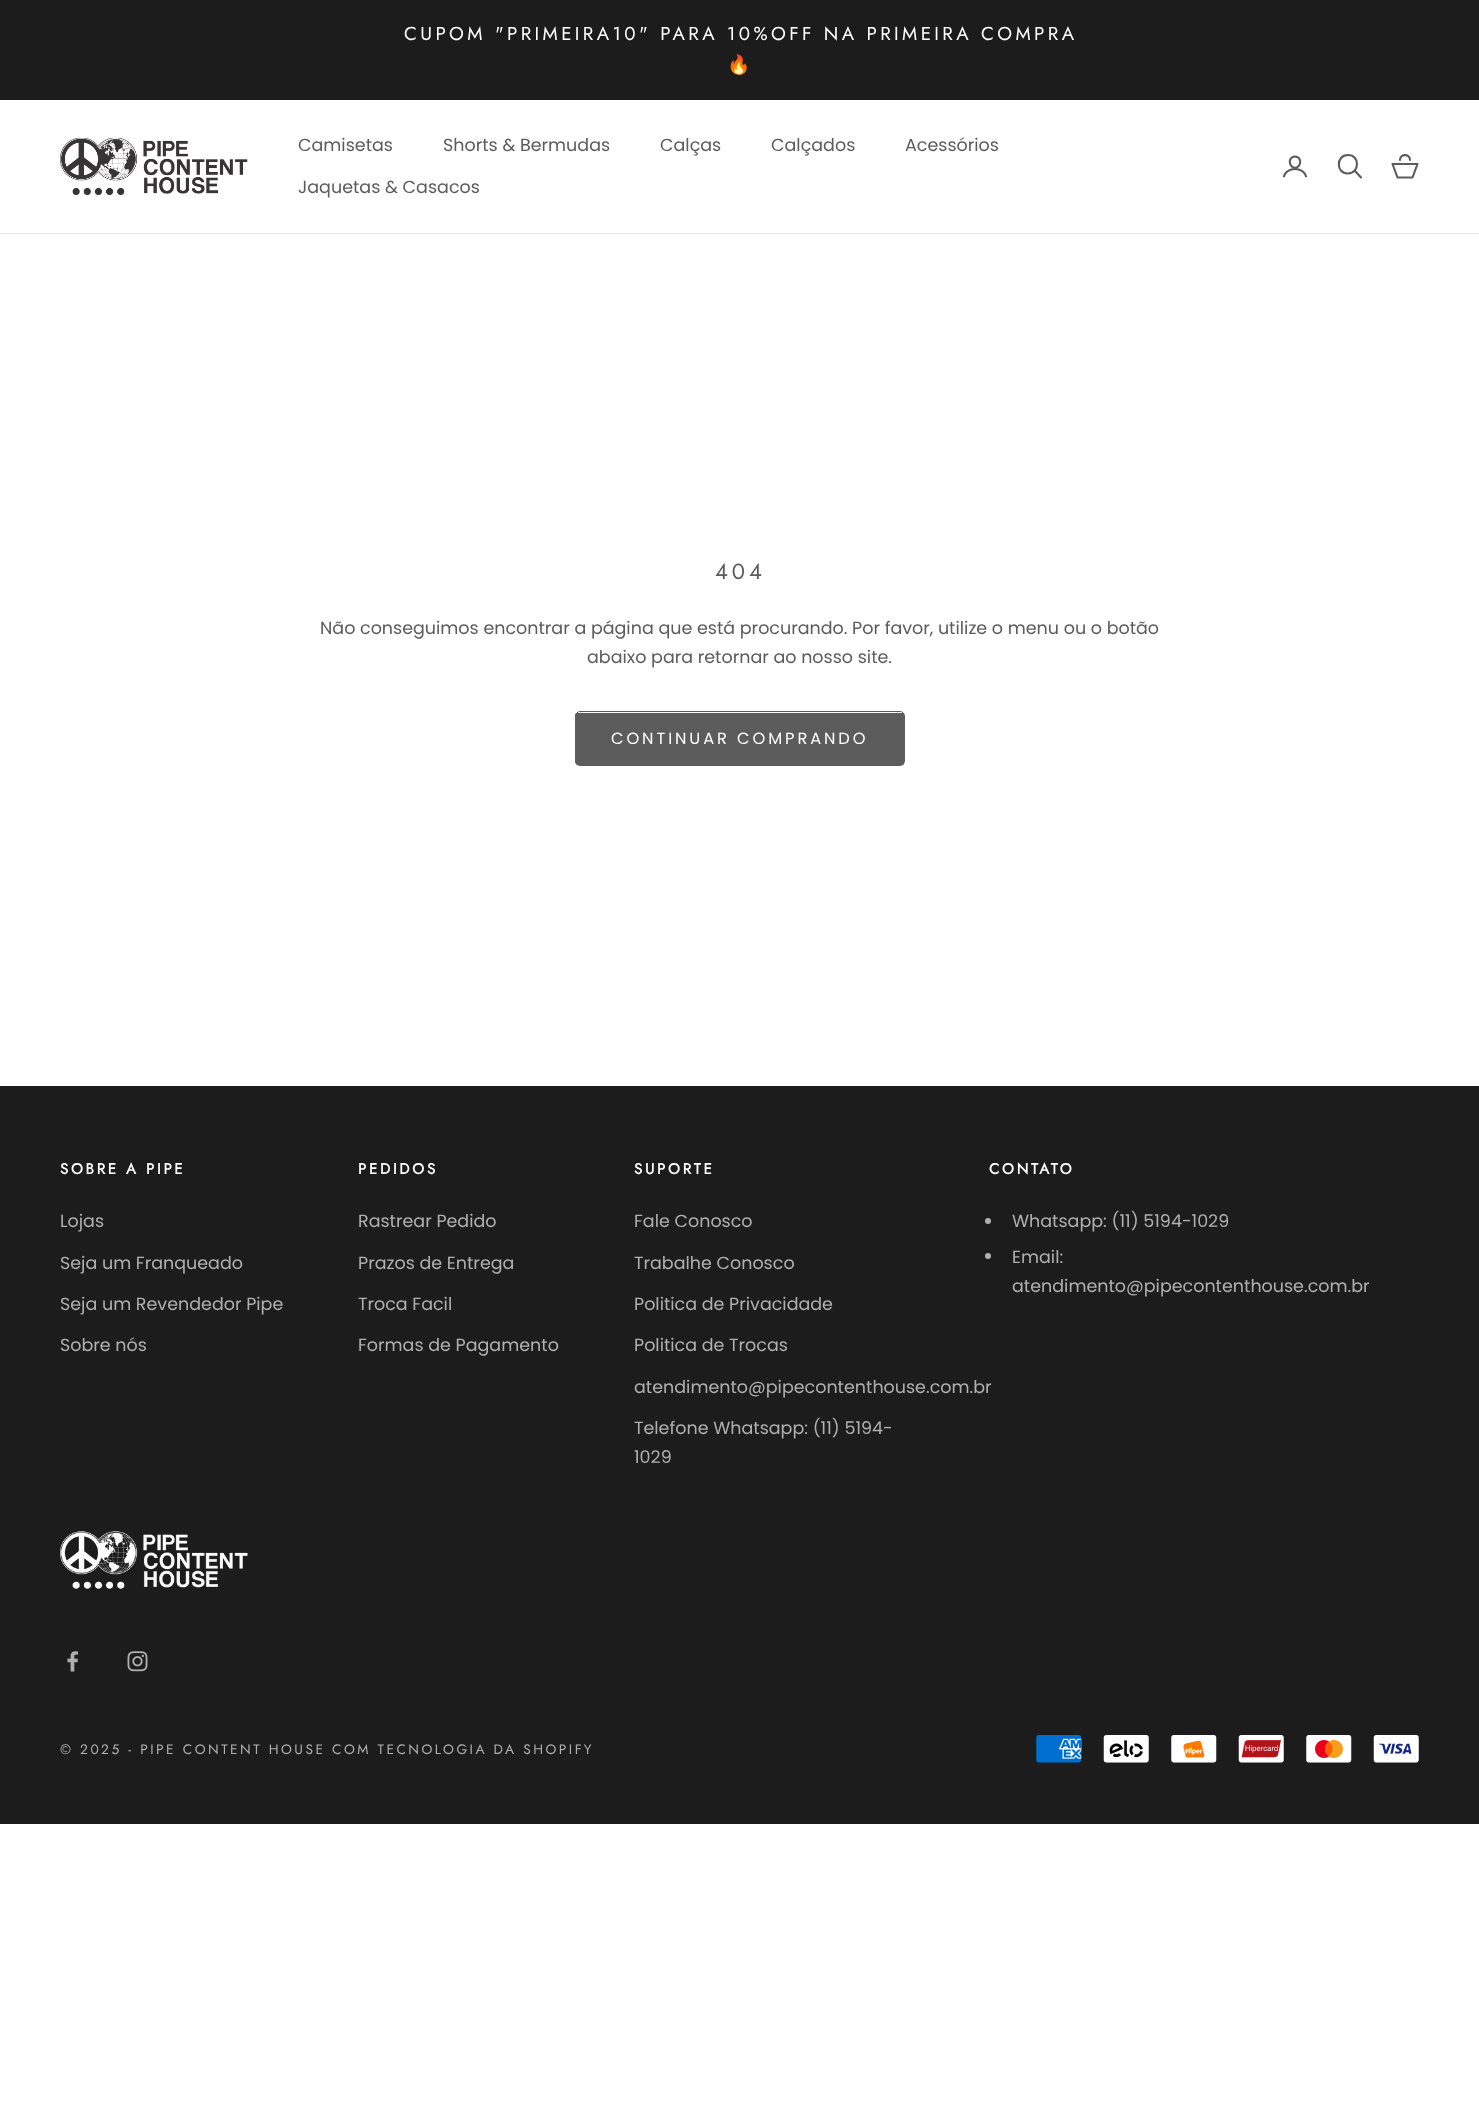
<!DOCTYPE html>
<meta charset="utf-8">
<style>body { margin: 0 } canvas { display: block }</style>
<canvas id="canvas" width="1479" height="2116"></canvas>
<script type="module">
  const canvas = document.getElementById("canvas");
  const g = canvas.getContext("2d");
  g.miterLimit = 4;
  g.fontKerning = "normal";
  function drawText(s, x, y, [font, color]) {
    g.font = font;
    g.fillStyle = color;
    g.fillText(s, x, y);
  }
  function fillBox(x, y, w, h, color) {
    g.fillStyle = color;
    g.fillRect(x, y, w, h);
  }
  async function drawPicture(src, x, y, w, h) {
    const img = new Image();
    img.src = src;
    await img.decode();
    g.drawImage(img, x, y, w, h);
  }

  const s1 = ["18.75px Jost", "#FFFFFF"];
  const s2 = ["18.75px Noto Color Emoji", "#FFFFFF"];
  const s3 = ["17.5px Poppins", "#5C5C5C"];
  const s4 = ["22px Jost", "#5C5C5C"];
  const s5 = ["16.25px Poppins", "#FFFFFF"];
  const s6 = ["bold 15px Jost", "#FFFFFF"];
  const s7 = ["17.5px Poppins", "#B0B0B0"];
  const s8 = ["13.75px Jost", "#B0B0B0"];

  fillBox(0, 0, 1479, 2116, "#FFFFFF");
  fillBox(0, 0, 1479, 100, "#1C1C1C");
  g.letterSpacing = "3.4px";
  drawText("CUPOM \"PRIMEIRA10\" PARA 10%OFF NA PRIMEIRA COMPRA", 404, 40, s1);
  drawText("🔥", 727, 71, s2);
  fillBox(0, 233, 1479, 1, "#E7E7E7");
  await drawPicture("pic1.png", 60, 138, 188, 57);
  g.letterSpacing = "0px";
  drawText("Camisetas", 298, 151, s3);
  drawText("Shorts & Bermudas", 443, 151, s3);
  drawText("Calças", 660, 151, s3);
  drawText("Calçados", 771, 151, s3);
  drawText("Acessórios", 905, 151, s3);
  drawText("Jaquetas & Casacos", 298, 193, s3);
  await drawPicture("pic2.png", 1282, 155, 26, 23);
  g.beginPath();
  g.moveTo(1348, 155);
  g.bezierCurveTo(1335.5, 155, 1336, 174, 1348, 173.5);
  g.bezierCurveTo(1360, 173, 1360, 155, 1348, 155);
  g.closePath();
  g.strokeStyle = "#5C5C5C";
  g.lineWidth = 2.1;
  g.stroke();
  g.beginPath();
  g.moveTo(1355, 171);
  g.lineTo(1361, 177.5);
  g.lineCap = "round";
  g.stroke();
  g.beginPath();
  g.moveTo(1392.5, 164);
  g.lineTo(1417.5, 164);
  g.lineTo(1412.5, 177.5);
  g.lineTo(1397.5, 177.5);
  g.closePath();
  g.moveTo(1410, 160);
  g.bezierCurveTo(1410, 153.5, 1400, 153.5, 1400, 160);
  g.lineJoin = "round";
  g.stroke();
  g.letterSpacing = "4px";
  drawText("404", 715, 579, s4);
  g.letterSpacing = "0px";
  drawText("Não conseguimos encontrar a página que está procurando. Por favor, utilize o menu ou o botão", 320, 634, s3);
  drawText("abaixo para retornar ao nosso site.", 587, 663, s3);
  g.save();
  g.beginPath();
  g.roundRect(575, 711, 330, 55, 5);
  g.clip();
  fillBox(575, 713, 329, 52, "#5C5C5C");
  g.restore();
  g.beginPath();
  g.roundRect(575.5, 711.5, 329, 54, 4.5);
  g.lineWidth = 1;
  g.lineJoin = "miter";
  g.stroke();
  g.letterSpacing = "2.9px";
  drawText("CONTINUAR COMPRANDO", 611, 744, s5);
  fillBox(0, 1086, 1479, 738, "#1C1C1C");
  g.letterSpacing = "2.75px";
  drawText("SOBRE A PIPE", 60, 1174, s6);
  g.letterSpacing = "0px";
  drawText("Lojas", 60, 1227, s7);
  drawText("Seja um Franqueado", 60, 1269, s7);
  drawText("Seja um Revendedor Pipe", 60, 1310, s7);
  drawText("Sobre nós", 60, 1351, s7);
  g.letterSpacing = "2.75px";
  drawText("PEDIDOS", 358, 1174, s6);
  g.letterSpacing = "0px";
  drawText("Rastrear Pedido", 358, 1227, s7);
  drawText("Prazos de Entrega", 358, 1269, s7);
  drawText("Troca Facil", 358, 1310, s7);
  drawText("Formas de Pagamento", 358, 1351, s7);
  g.letterSpacing = "2.75px";
  drawText("SUPORTE", 634, 1174, s6);
  g.letterSpacing = "0px";
  drawText("Fale Conosco", 634, 1227, s7);
  drawText("Trabalhe Conosco", 634, 1269, s7);
  drawText("Politica de Privacidade", 634, 1310, s7);
  drawText("Politica de Trocas", 634, 1351, s7);
  drawText("atendimento@pipecontenthouse.com.br", 634, 1393, s7);
  drawText("Telefone Whatsapp: (11) 5194-", 634, 1434, s7);
  drawText("1029", 634, 1463, s7);
  g.letterSpacing = "2.75px";
  drawText("CONTATO", 989, 1174, s6);
  g.fillStyle = "#B0B0B0";
  g.beginPath();
  g.arc(988, 1221, 3, 0, Math.PI * 2);
  g.fill();
  g.letterSpacing = "0px";
  drawText("Whatsapp: (11) 5194-1029", 1012, 1227, s7);
  g.beginPath();
  g.arc(988, 1256, 3, 0, Math.PI * 2);
  g.fill();
  drawText("Email:", 1012, 1263, s7);
  drawText("atendimento@pipecontenthouse.com.br", 1012, 1292, s7);
  await drawPicture("pic3.png", 60, 1531, 188, 58);
  await drawPicture("pic4.png", 67, 1651, 11, 21);
  await drawPicture("pic5.png", 127, 1651, 21, 21);
  g.letterSpacing = "2.48px";
  drawText("© 2025 - PIPE CONTENT HOUSE COM TECNOLOGIA DA SHOPIFY", 60, 1754, s8);
  await drawPicture("pic6.png", 1036, 1735, 46, 28);
  await drawPicture("pic7.png", 1103, 1735, 46, 28);
  await drawPicture("pic8.png", 1171, 1735, 46, 28);
  await drawPicture("pic9.png", 1238, 1735, 46, 28);
  await drawPicture("pic10.png", 1306, 1735, 46, 28);
  await drawPicture("pic11.png", 1373, 1735, 46, 28);
</script>
